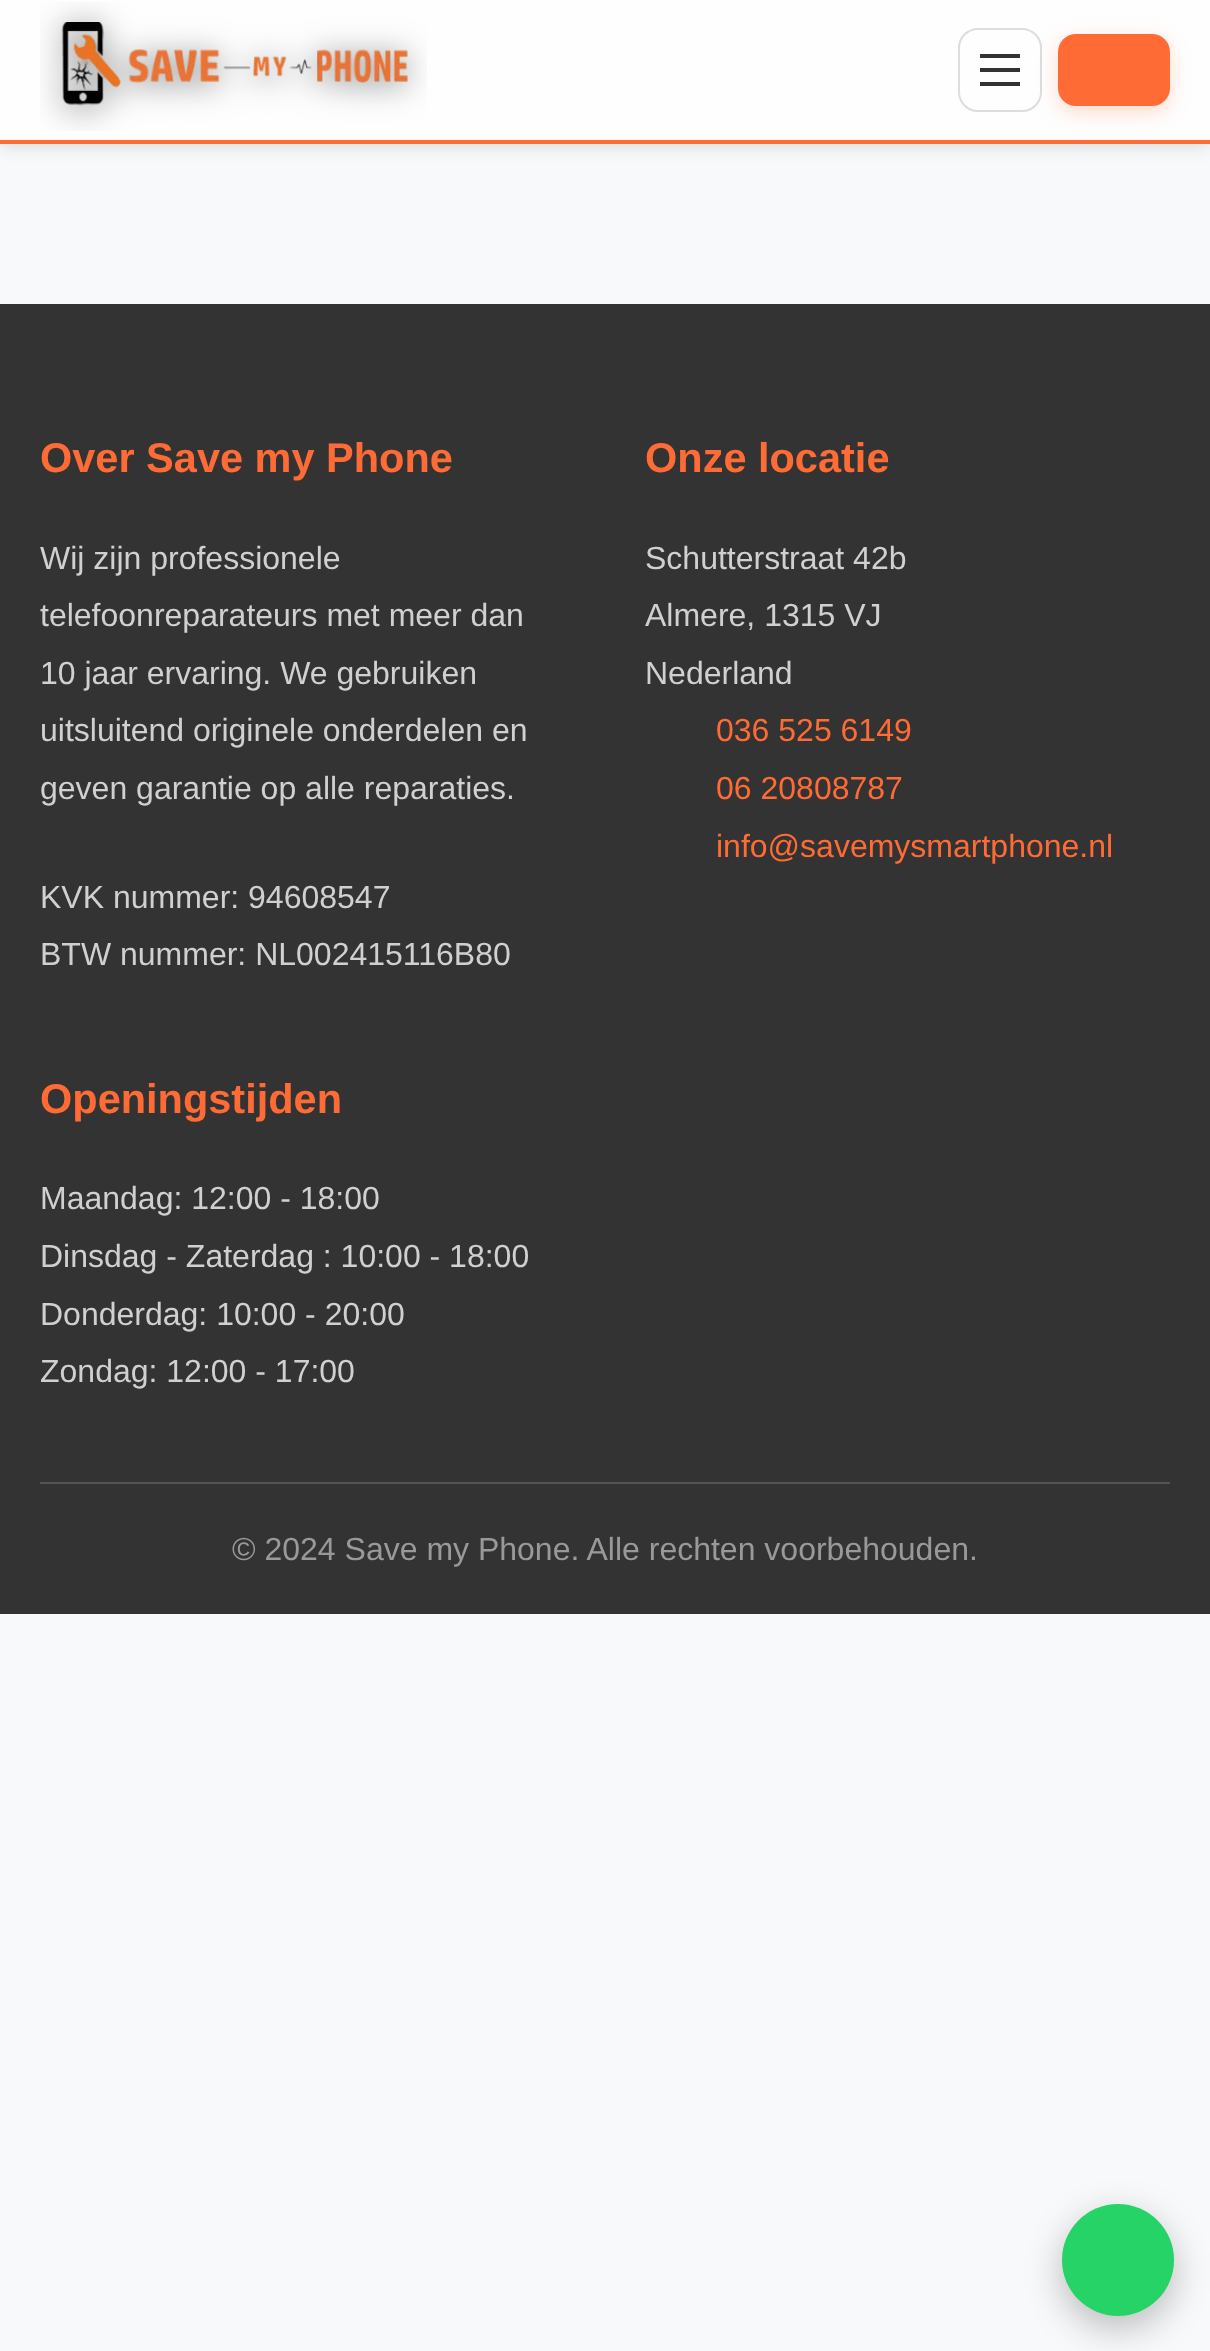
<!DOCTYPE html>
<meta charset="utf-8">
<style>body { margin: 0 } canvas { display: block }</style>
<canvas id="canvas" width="1210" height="2351"></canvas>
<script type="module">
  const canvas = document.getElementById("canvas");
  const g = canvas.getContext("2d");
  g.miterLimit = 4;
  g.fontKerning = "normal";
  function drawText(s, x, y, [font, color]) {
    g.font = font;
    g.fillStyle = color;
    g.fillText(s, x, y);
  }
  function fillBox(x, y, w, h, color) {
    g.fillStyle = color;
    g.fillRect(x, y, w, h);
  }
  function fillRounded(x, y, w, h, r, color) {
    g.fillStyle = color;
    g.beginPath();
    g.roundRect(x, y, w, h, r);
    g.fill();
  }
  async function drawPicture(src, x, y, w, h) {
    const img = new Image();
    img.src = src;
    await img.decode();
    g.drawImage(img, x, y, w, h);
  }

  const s1 = ["bold 41.5px Liberation Sans", "#FF6B35"];
  const s2 = ["32px Liberation Sans", "#D0D0D0"];
  const s3 = ["32px Liberation Sans", "#FF6B35"];
  const s4 = ["32px Liberation Sans", "#999999"];

  fillBox(0, 0, 1210, 2351, "#F8F9FA");
  g.fillStyle = "rgba(0, 0, 0, 0.1)";
  g.filter = "blur(8px)";
  g.beginPath();
  g.rect(0, 4, 1210, 144);
  g.fill();
  g.filter = "none";
  fillBox(0, 0, 1210, 140, "#FEFEFE");
  fillBox(0, 140, 1210, 4, "#FF6B35");
  await drawPicture("pic1.png", 40, 2, 387, 129);
  g.beginPath();
  g.roundRect(959, 29, 82, 82, 19);
  g.strokeStyle = "#DDDDDD";
  g.lineWidth = 2;
  g.stroke();
  fillBox(980, 54, 40, 4, "#333333");
  fillBox(980, 68, 40, 4, "#333333");
  fillBox(980, 82, 40, 4, "#333333");
  g.fillStyle = "rgba(255, 107, 53, 0.25)";
  g.filter = "blur(10px)";
  g.beginPath();
  g.roundRect(1058, 40, 112, 72, 18);
  g.fill();
  g.filter = "none";
  fillRounded(1058, 34, 112, 72, 18, "#FF6B35");
  fillBox(0, 304, 1210, 1310, "#333333");
  drawText("Over Save my Phone", 40, 472, s1);
  drawText("Wij zijn professionele", 40, 569, s2);
  drawText("telefoonreparateurs met meer dan", 40, 626, s2);
  drawText("10 jaar ervaring. We gebruiken", 40, 684, s2);
  drawText("uitsluitend originele onderdelen en", 40, 741, s2);
  drawText("geven garantie op alle reparaties.", 40, 799, s2);
  drawText("KVK nummer: 94608547", 40, 908, s2);
  drawText("BTW nummer: NL002415116B80", 40, 965, s2);
  drawText("Onze locatie", 645, 472, s1);
  drawText("Schutterstraat 42b", 645, 569, s2);
  drawText("Almere, 1315 VJ", 645, 626, s2);
  drawText("Nederland", 645, 684, s2);
  drawText("036 525 6149", 716, 741, s3);
  drawText("06 20808787", 716, 799, s3);
  drawText("info@savemysmartphone.nl", 716, 857, s3);
  drawText("Openingstijden", 40, 1113, s1);
  drawText("Maandag: 12:00 - 18:00", 40, 1209, s2);
  drawText("Dinsdag - Zaterdag : 10:00 - 18:00", 40, 1267, s2);
  drawText("Donderdag: 10:00 - 20:00", 40, 1325, s2);
  drawText("Zondag: 12:00 - 17:00", 40, 1382, s2);
  fillBox(40, 1482, 1130, 2, "#555555");
  drawText("© 2024 Save my Phone. Alle rechten voorbehouden.", 232, 1560, s4);
  g.fillStyle = "rgba(0, 0, 0, 0.25)";
  g.filter = "blur(18px)";
  g.beginPath();
  g.roundRect(1062, 2216, 112, 112, 56);
  g.fill();
  g.filter = "none";
  g.fillStyle = "#25D366";
  g.beginPath();
  g.arc(1118, 2260, 56, 0, Math.PI * 2);
  g.fill();
</script>
